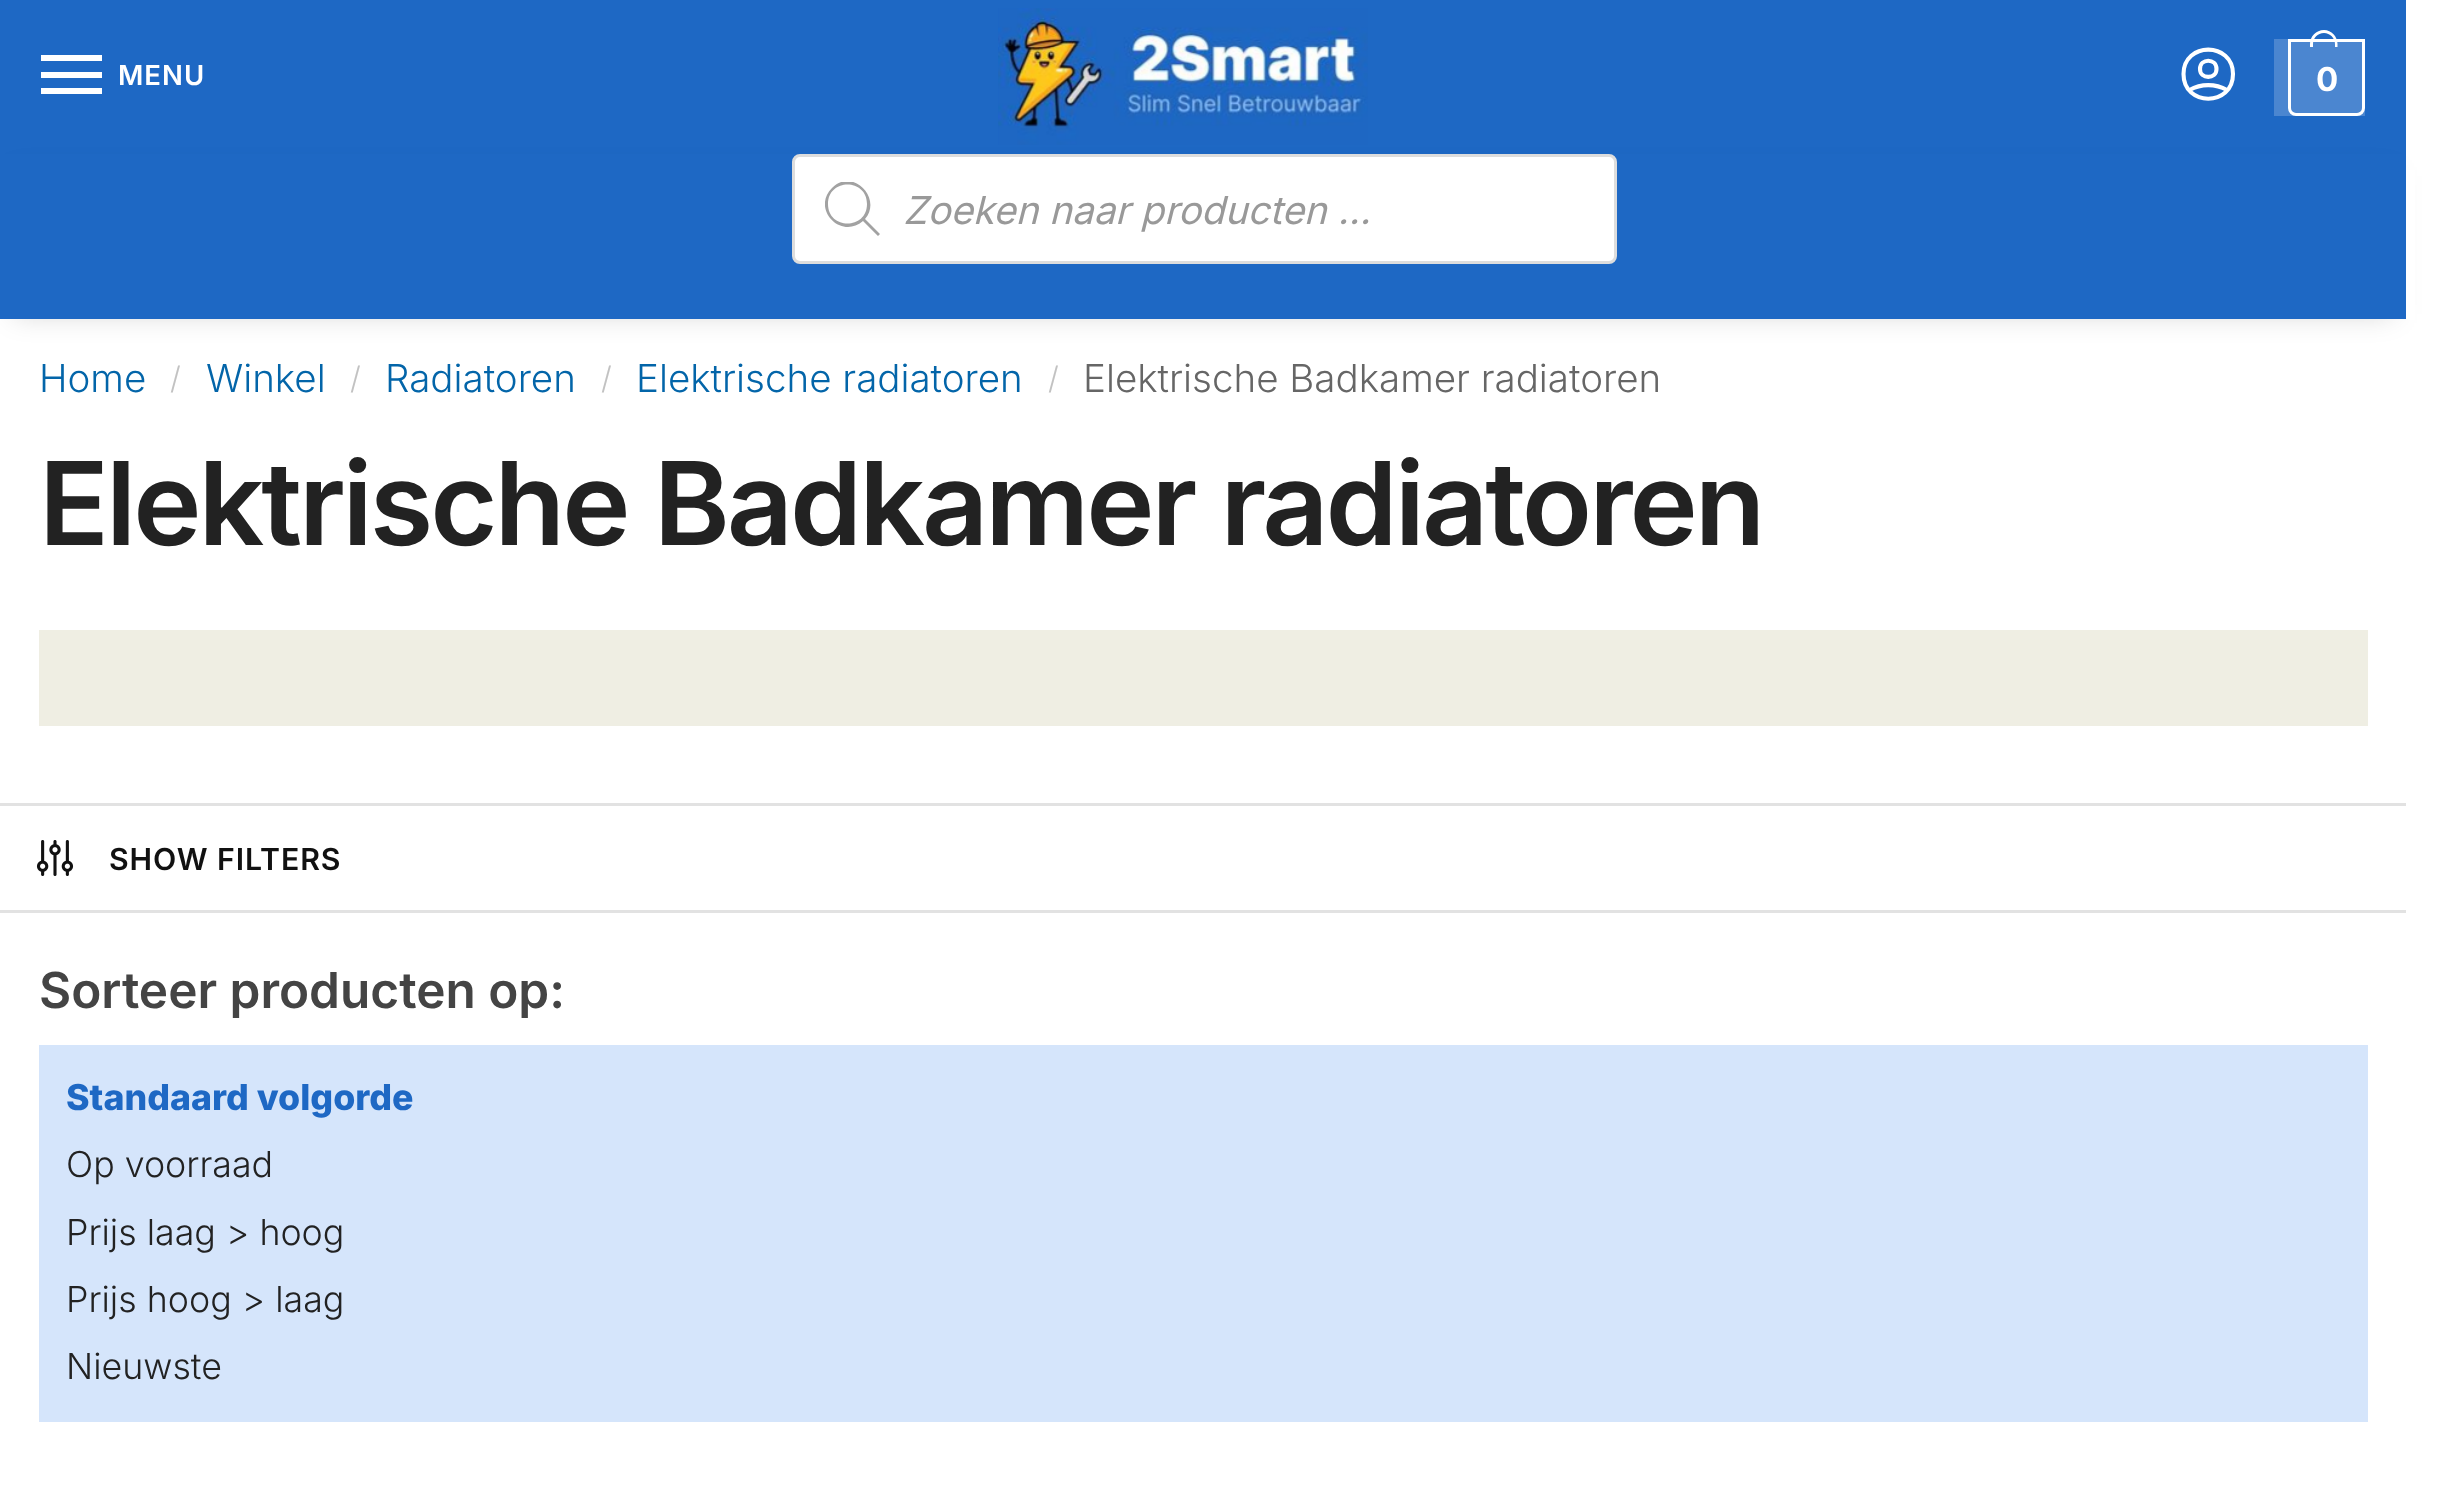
<!DOCTYPE html>
<meta charset="utf-8">
<style>body { margin: 0 } canvas { display: block }</style>
<canvas id="canvas" width="2445" height="1486"></canvas>
<script type="module">
  const canvas = document.getElementById("canvas");
  const g = canvas.getContext("2d");
  g.miterLimit = 4;
  g.fontKerning = "normal";
  function drawText(s, x, y, [font, color]) {
    g.font = font;
    g.fillStyle = color;
    g.fillText(s, x, y);
  }
  function fillBox(x, y, w, h, color) {
    g.fillStyle = color;
    g.fillRect(x, y, w, h);
  }
  async function drawPicture(src, x, y, w, h) {
    const img = new Image();
    img.src = src;
    await img.decode();
    g.drawImage(img, x, y, w, h);
  }

  const s1 = ["600 27.5px Inter", "#FFFFFF"];
  const s2 = ["bold 33px Inter", "#FFFFFF"];
  const s3 = ["italic 38.5px Inter", "#999999"];
  const s4 = ["300 38.5px Inter", "#0365A9"];
  const s5 = ["300 31px Inter", "#C2C2C2"];
  const s6 = ["300 38.5px Inter", "#666666"];
  const s7 = ["600 115.5px Inter", "#222222"];
  const s8 = ["600 30.25px Inter", "#111111"];
  const s9 = ["600 49.5px Inter", "#444444"];
  const s10 = ["800 35.75px Inter", "#1E68C4"];
  const s11 = ["300 35.75px Inter", "#222222"];

  fillBox(0, 0, 2445, 1486, "#FFFFFF");
  fillBox(0, 0, 2406, 154, "#1E68C4");
  fillBox(41, 55, 61, 6, "#FFFFFF");
  fillBox(41, 72, 61, 6, "#FFFFFF");
  g.letterSpacing = "1px";
  drawText("MENU", 118, 85, s1);
  fillBox(41, 88, 61, 6, "#FFFFFF");
  await drawPicture("pic1.png", 998, 8, 370, 137);
  g.beginPath();
  g.moveTo(2189.5, 90);
  g.bezierCurveTo(2201, 83.5, 2215.5, 83.5, 2227, 90);
  g.moveTo(2216.5, 69);
  g.bezierCurveTo(2216.5, 79.5, 2200, 79.5, 2200, 69);
  g.bezierCurveTo(2200, 58, 2216.5, 58, 2216.5, 69);
  g.closePath();
  g.moveTo(2233, 74);
  g.bezierCurveTo(2233, 107, 2183.5, 107, 2183.5, 74);
  g.bezierCurveTo(2183.5, 41.5, 2233, 41.5, 2233, 74);
  g.closePath();
  g.strokeStyle = "#FFFFFF";
  g.lineWidth = 4.1;
  g.lineCap = "round";
  g.lineJoin = "round";
  g.stroke();
  fillBox(2274, 39, 91, 77, "#4B86D0");
  g.beginPath();
  g.roundRect(2289.5, 40.5, 74, 74, [0, 0, 6.5, 6.5]);
  g.lineWidth = 3;
  g.lineJoin = "miter";
  g.stroke();
  g.fillStyle = "#FFFFFF";
  g.beginPath();
  g.moveTo(2324, 30);
  g.bezierCurveTo(2331.5, 30, 2337.5, 36.5, 2337.5, 44);
  g.lineTo(2337.5, 47);
  g.lineTo(2310, 47);
  g.lineTo(2310, 44);
  g.bezierCurveTo(2310, 36.5, 2316, 30, 2324, 30);
  g.closePath();
  g.moveTo(2324, 33);
  g.bezierCurveTo(2330, 33, 2335, 38, 2335, 44);
  g.lineTo(2335, 47);
  g.lineTo(2313, 47);
  g.lineTo(2313, 44);
  g.bezierCurveTo(2313, 38, 2317.5, 33, 2324, 33);
  g.closePath();
  g.fill("evenodd");
  g.letterSpacing = "-2px";
  drawText("0", 2316, 91, s2);
  g.fillStyle = "rgba(0, 0, 0, 0.18)";
  g.filter = "blur(14px)";
  g.beginPath();
  g.rect(14, 176, 2379, 138);
  g.fill();
  g.filter = "none";
  fillBox(0, 154, 2406, 165, "#1E68C4");
  g.fillStyle = "#FFFFFF";
  g.beginPath();
  g.roundRect(793.5, 155.5, 822, 107, 6.5);
  g.fill();
  g.strokeStyle = "#DDDDDD";
  g.stroke();
  g.save();
  g.beginPath();
  g.rect(825, 182, 55, 55);
  g.clip();
  g.fillStyle = "#A2A2A2";
  g.beginPath();
  g.moveTo(880, 234);
  g.lineTo(865, 219);
  g.bezierCurveTo(883, 198, 852, 167, 832, 188);
  g.bezierCurveTo(811, 209, 841, 240, 863, 221);
  g.lineTo(878, 236);
  g.closePath();
  g.moveTo(828, 204);
  g.bezierCurveTo(828, 178, 867, 178, 867, 204);
  g.bezierCurveTo(867, 230, 828, 230, 828, 204);
  g.closePath();
  g.fill();
  g.restore();
  g.letterSpacing = "0px";
  drawText("Zoeken naar producten ...", 903, 224, s3);
  fillBox(2406, 170, 9, 150, "#FFFFFF");
  drawText("Home", 39, 392, s4);
  drawText("/", 170, 389, s5);
  drawText("Winkel", 206, 392, s4);
  drawText("/", 350, 389, s5);
  drawText("Radiatoren", 385, 392, s4);
  drawText("/", 601, 389, s5);
  drawText("Elektrische radiatoren", 636, 392, s4);
  drawText("/", 1048, 389, s5);
  drawText("Elektrische Badkamer radiatoren", 1083, 392, s6);
  g.letterSpacing = "-3px";
  drawText("Elektrische Badkamer radiatoren", 39, 545, s7);
  fillBox(39, 630, 2329, 96, "#EFEEE3");
  fillBox(0, 803, 2406, 3, "#E2E2E2");
  fillBox(0, 910, 2406, 3, "#E2E2E2");
  await drawPicture("pic2.png", 36, 840, 38, 36);
  g.letterSpacing = "0.9px";
  drawText("SHOW FILTERS", 109, 870, s8);
  g.letterSpacing = "0px";
  drawText("Sorteer producten op:", 39, 1008, s9);
  fillBox(39, 1045, 2329, 377, "#D5E5FB");
  drawText("Standaard volgorde", 66, 1110, s10);
  drawText("Op voorraad", 66, 1177, s11);
  drawText("Prijs laag > hoog", 66, 1245, s11);
  drawText("Prijs hoog > laag", 66, 1312, s11);
  drawText("Nieuwste", 66, 1379, s11);
</script>
